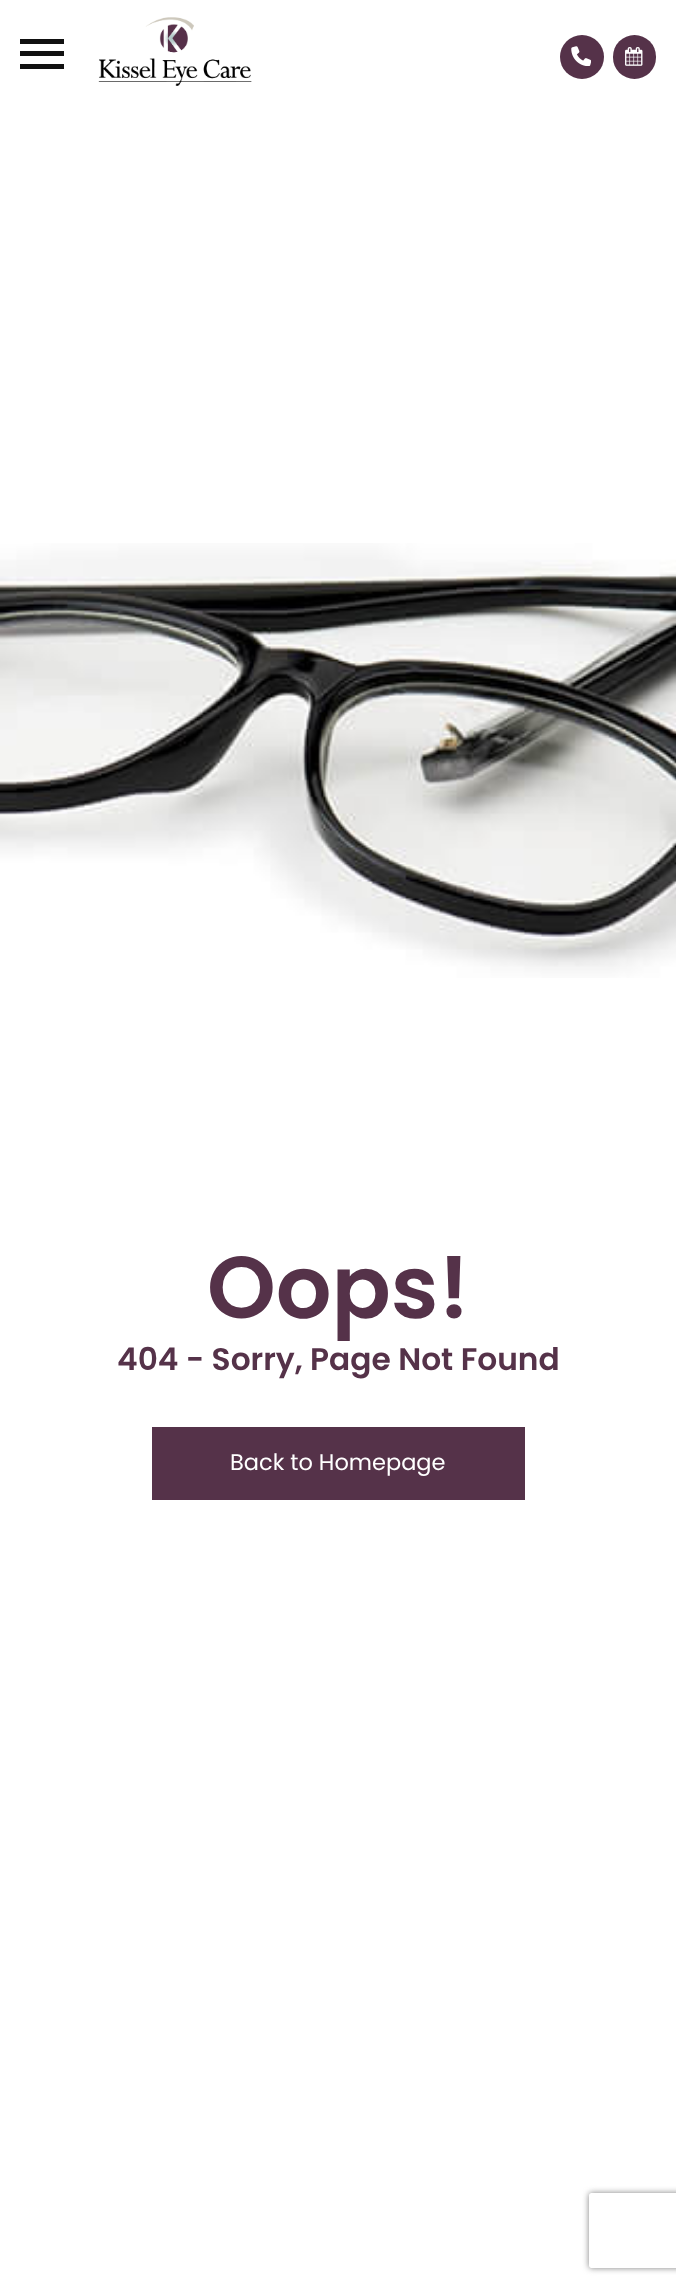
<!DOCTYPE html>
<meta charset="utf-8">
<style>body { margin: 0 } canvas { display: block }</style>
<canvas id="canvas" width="676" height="2285"></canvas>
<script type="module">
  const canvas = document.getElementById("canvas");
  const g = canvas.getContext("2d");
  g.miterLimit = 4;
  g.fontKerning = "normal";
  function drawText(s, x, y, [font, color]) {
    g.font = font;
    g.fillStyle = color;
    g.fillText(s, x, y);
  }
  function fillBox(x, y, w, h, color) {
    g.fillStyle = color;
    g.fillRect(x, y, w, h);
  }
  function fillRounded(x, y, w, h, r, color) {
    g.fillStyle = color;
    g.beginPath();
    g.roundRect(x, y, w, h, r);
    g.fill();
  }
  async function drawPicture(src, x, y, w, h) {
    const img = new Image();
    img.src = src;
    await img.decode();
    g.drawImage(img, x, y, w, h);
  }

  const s1 = ["600 87.5px Poppins", "#553249"];
  const s2 = ["600 31.25px Poppins", "#553249"];
  const s3 = ["22.5px Poppins", "#FFFFFF"];

  fillBox(0, 0, 676, 2285, "#FFFFFF");
  fillBox(20, 64, 44, 5, "#111111");
  fillBox(20, 39, 44, 5, "#111111");
  fillBox(20, 51, 44, 5, "#111111");
  await drawPicture("pic1.png", 98, 17, 154, 69);
  g.fillStyle = "#553249";
  g.beginPath();
  g.arc(582, 57, 22, 0, Math.PI * 2);
  g.fill();
  await drawPicture("pic2.png", 571, 46, 20, 20);
  fillRounded(613, 35, 43, 44, 21.5, "#553249");
  await drawPicture("pic3.png", 625, 47, 18, 19);
  await drawPicture("pic4.png", 0, 543, 676, 435);
  drawText("Oops!", 207, 1318, s1);
  drawText("404 - Sorry, Page Not Found", 117, 1370, s2);
  fillBox(152, 1427, 373, 73, "#553249");
  drawText("Back to Homepage", 230, 1470, s3);
  g.save();
  g.beginPath();
  g.moveTo(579, 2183);
  g.lineTo(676, 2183);
  g.lineTo(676, 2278);
  g.lineTo(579, 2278);
  g.closePath();
  g.moveTo(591.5, 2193);
  g.lineTo(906.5, 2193);
  g.bezierCurveTo(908, 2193, 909, 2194, 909, 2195.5);
  g.lineTo(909, 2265.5);
  g.bezierCurveTo(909, 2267, 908, 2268, 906.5, 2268);
  g.lineTo(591.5, 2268);
  g.bezierCurveTo(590, 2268, 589, 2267, 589, 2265.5);
  g.lineTo(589, 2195.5);
  g.bezierCurveTo(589, 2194, 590, 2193, 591.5, 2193);
  g.closePath();
  g.clip("evenodd");
  g.fillStyle = "#808080";
  g.filter = "blur(3px)";
  g.beginPath();
  g.roundRect(589, 2193, 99, 75, 2.5);
  g.fill();
  g.filter = "none";
  g.restore();
</script>
